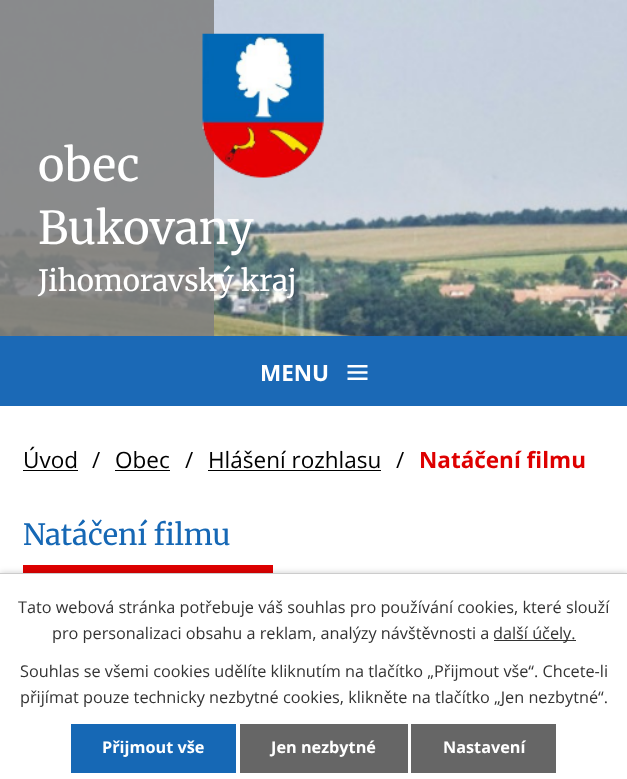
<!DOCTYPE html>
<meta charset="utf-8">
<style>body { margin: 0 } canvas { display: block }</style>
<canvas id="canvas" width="627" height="779"></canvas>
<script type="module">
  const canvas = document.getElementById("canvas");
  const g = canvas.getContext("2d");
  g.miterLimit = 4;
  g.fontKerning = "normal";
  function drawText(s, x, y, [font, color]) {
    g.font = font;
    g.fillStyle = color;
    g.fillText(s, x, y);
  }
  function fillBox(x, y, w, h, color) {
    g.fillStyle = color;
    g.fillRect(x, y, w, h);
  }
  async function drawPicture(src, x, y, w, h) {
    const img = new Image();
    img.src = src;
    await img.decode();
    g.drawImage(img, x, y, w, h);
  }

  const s1 = ["300 45px Merriweather", "#FFFFFF"];
  const s2 = ["300 29.25px Merriweather", "#FFFFFF"];
  const s3 = ["bold 22.5px Open Sans", "#FFFFFF"];
  const s4 = ["22.5px Open Sans", "#000000"];
  const s5 = ["bold 22.5px Open Sans", "#DE0000"];
  const s6 = ["300 29.25px Merriweather", "#1668B5"];
  const s7 = ["16.25px Open Sans", "#333333"];
  const s8 = ["bold 16.25px Open Sans", "#FFFFFF"];

  fillBox(0, 0, 627, 779, "#FFFFFF");
  await drawPicture("pic1.png", 0, 0, 627, 336);
  fillBox(0, 0, 214, 336, "rgba(127, 127, 127, 0.87)");
  await drawPicture("pic2.png", 202, 33, 122, 145);
  drawText("obec", 38, 181, s1);
  drawText("Bukovany", 38, 244, s1);
  drawText("Jihomoravský kraj", 38, 291, s2);
  fillBox(0, 336, 627, 70, "#1B69B6");
  drawText("MENU", 260, 381, s3);
  await drawPicture("pic3.png", 347, 365, 21, 15);
  drawText("Úvod", 23, 468, s4);
  fillBox(23, 470, 55, 1, "#000000");
  drawText("/", 92, 468, s4);
  drawText("Obec", 115, 468, s4);
  fillBox(115, 470, 55, 1, "#000000");
  drawText("/", 185, 468, s4);
  drawText("Hlášení rozhlasu", 208, 468, s4);
  fillBox(208, 470, 173, 1, "#000000");
  drawText("/", 396, 468, s4);
  drawText("Natáčení filmu", 419, 468, s5);
  drawText("Natáčení filmu", 23, 545, s6);
  fillBox(23, 565, 250, 8, "#DE0000");
  g.fillStyle = "rgba(0, 0, 0, 0.2)";
  g.filter = "blur(3px)";
  g.beginPath();
  g.rect(0, 573, 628, 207);
  g.fill();
  g.filter = "none";
  fillBox(0, 574, 627, 205, "#FFFFFF");
  fillBox(0, 573, 627, 1, "#CCCCCC");
  drawText("Tato webová stránka potřebuje váš souhlas pro používání cookies, které slouží", 18, 613, s7);
  drawText("pro personalizaci obsahu a reklam, analýzy návštěvnosti a", 52, 639, s7);
  fillBox(494, 640, 82, 1, "#333333");
  drawText("další účely.", 493, 639, s7);
  drawText("Souhlas se všemi cookies udělíte kliknutím na tlačítko „Přijmout vše“. Chcete-li", 20, 677, s7);
  drawText("přijímat pouze technicky nezbytné cookies, klikněte na tlačítko „Jen nezbytné“.", 20, 703, s7);
  fillBox(71, 724, 165, 49, "#1668B5");
  drawText("Přijmout vše", 102, 753, s8);
  fillBox(240, 724, 168, 49, "#666666");
  drawText("Jen nezbytné", 271, 753, s8);
  fillBox(411, 724, 145, 49, "#666666");
  drawText("Nastavení", 443, 753, s8);
</script>
